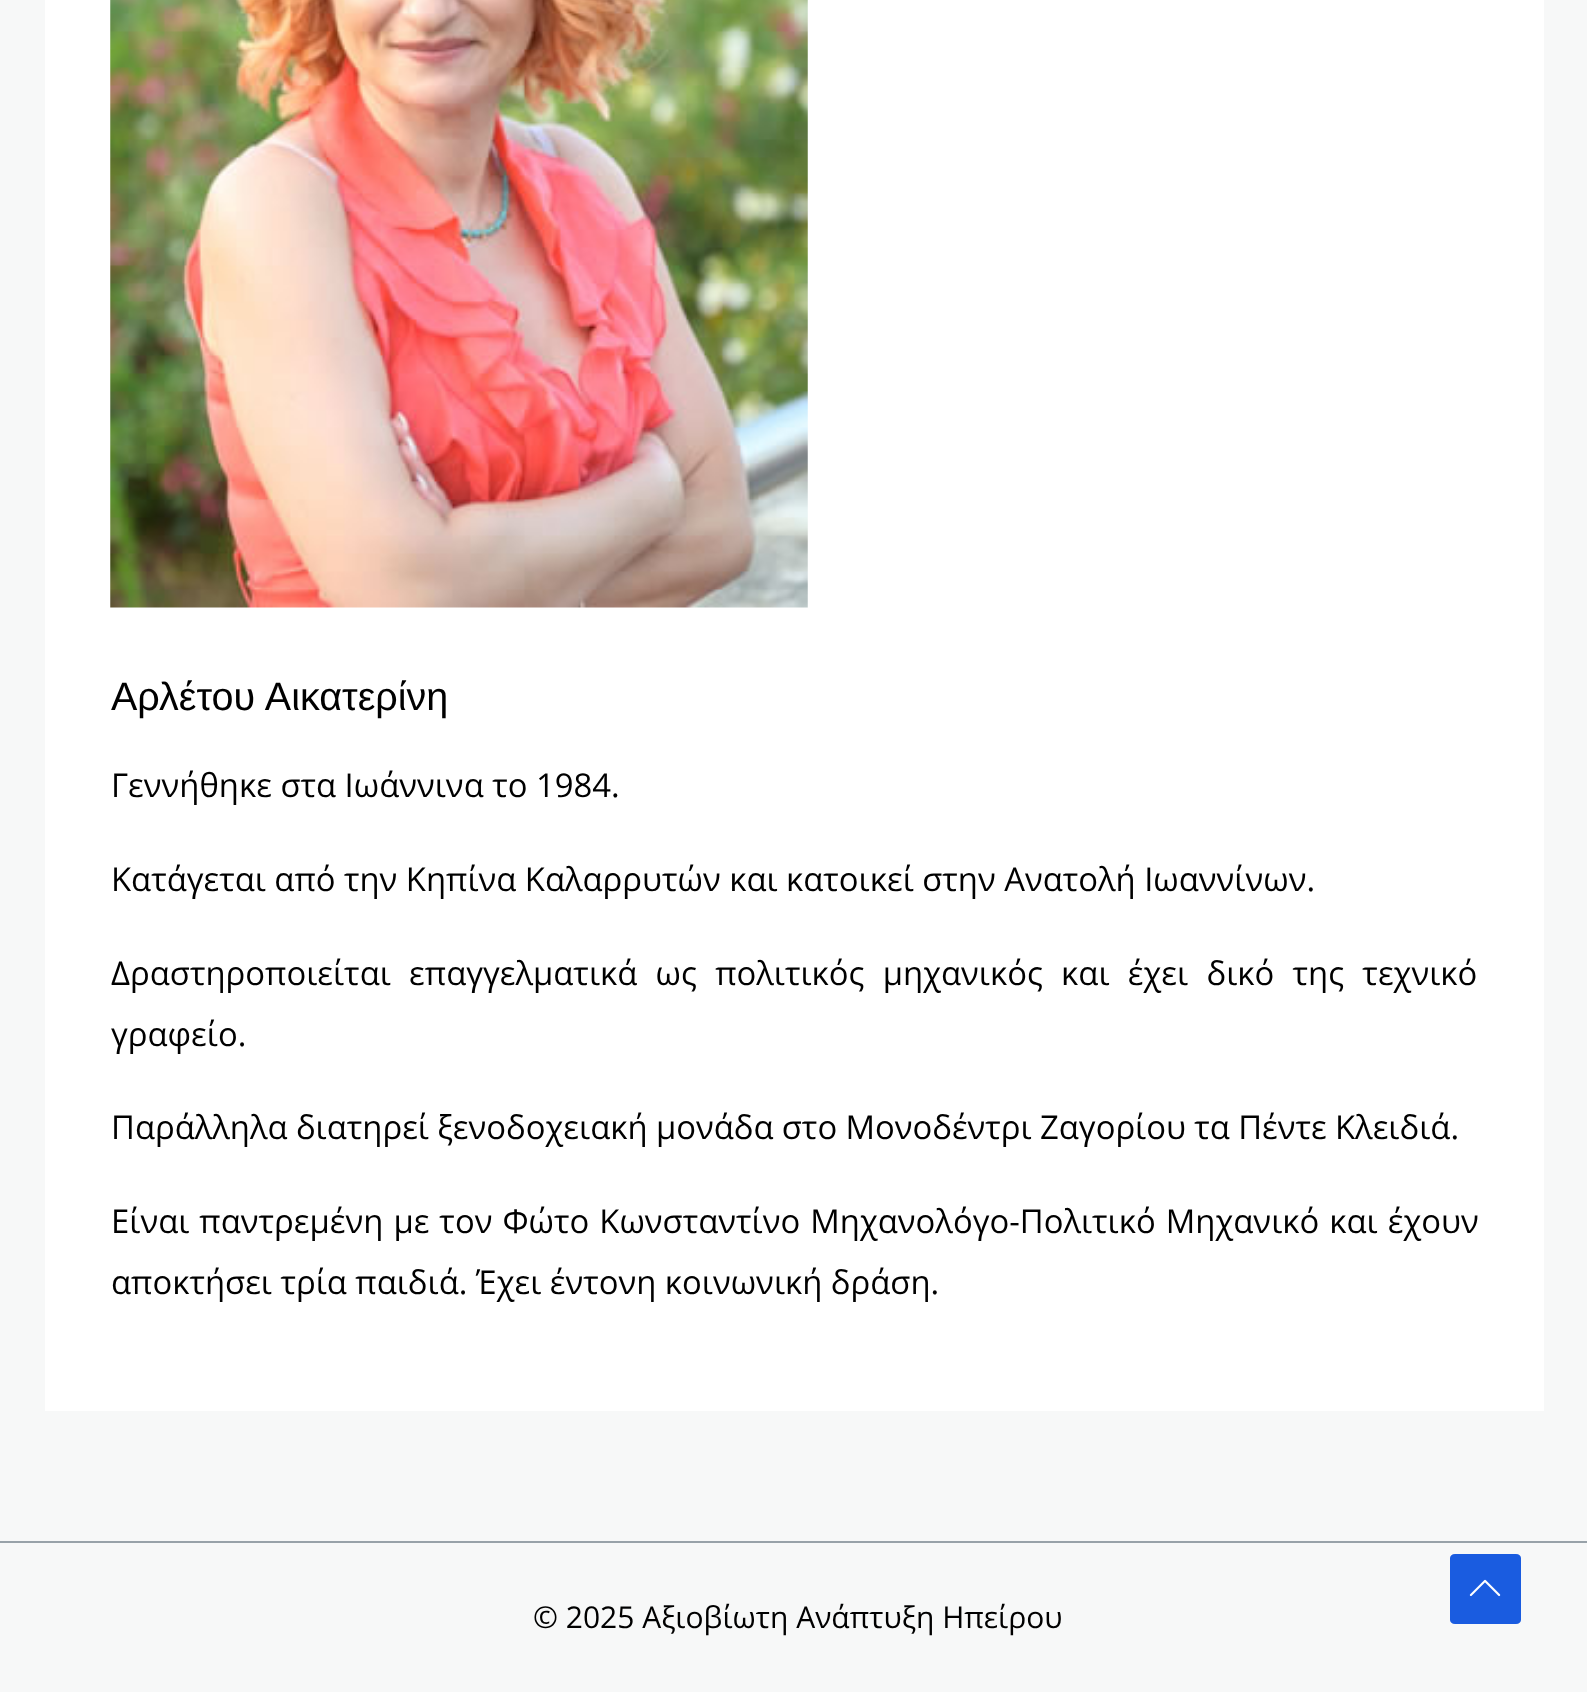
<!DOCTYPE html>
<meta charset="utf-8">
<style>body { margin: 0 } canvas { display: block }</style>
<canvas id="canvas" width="1587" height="1692"></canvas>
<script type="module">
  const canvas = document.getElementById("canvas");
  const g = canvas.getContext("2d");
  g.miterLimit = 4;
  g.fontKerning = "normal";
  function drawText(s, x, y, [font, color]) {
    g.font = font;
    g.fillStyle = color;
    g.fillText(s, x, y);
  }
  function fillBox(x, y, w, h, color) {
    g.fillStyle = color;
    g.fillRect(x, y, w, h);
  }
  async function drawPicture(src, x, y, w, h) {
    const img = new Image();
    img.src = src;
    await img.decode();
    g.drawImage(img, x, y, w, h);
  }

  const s1 = ["39.5px Liberation Sans", "#000000"];
  const s2 = ["32.85px Open Sans", "#000000"];
  const s3 = ["30px Open Sans", "#000000"];

  fillBox(0, 0, 1587, 1692, "#F7F8F8");
  fillBox(45, 0, 1499, 1411, "#FFFFFF");
  await drawPicture("pic1.png", 110, 0, 698, 608);
  g.wordSpacing = "1px";
  drawText("Αρλέτου Αικατερίνη", 111, 710, s1);
  g.wordSpacing = "0px";
  drawText("Γεννήθηκε στα Ιωάννινα το 1984.", 111, 797, s2);
  g.wordSpacing = "-0.1px";
  drawText("Κατάγεται από την Κηπίνα Καλαρρυτών και κατοικεί στην Ανατολή Ιωαννίνων.", 111, 891, s2);
  g.wordSpacing = "9.75px";
  drawText("Δραστηροποιείται επαγγελματικά ως πολιτικός μηχανικός και έχει δικό της τεχνικό", 111, 985, s2);
  g.wordSpacing = "0px";
  drawText("γραφείο.", 111, 1046, s2);
  g.wordSpacing = "-0.25px";
  drawText("Παράλληλα διατηρεί ξενοδοχειακή μονάδα στο Μονοδέντρι Ζαγορίου τα Πέντε Κλειδιά.", 111, 1139, s2);
  g.wordSpacing = "1.5px";
  drawText("Είναι παντρεμένη με τον Φώτο Κωνσταντίνο Μηχανολόγο-Πολιτικό Μηχανικό και έχουν", 111, 1233, s2);
  g.wordSpacing = "-0.1px";
  drawText("αποκτήσει τρία παιδιά. Έχει έντονη κοινωνική δράση.", 111, 1294, s2);
  fillBox(0, 1541, 1587, 2, "#98A2A9");
  g.wordSpacing = "0px";
  drawText("© 2025 Αξιοβίωτη Ανάπτυξη Ηπείρου", 533, 1628, s3);
  g.fillStyle = "#1A5CE0";
  g.beginPath();
  g.moveTo(1516, 1624);
  g.lineTo(1455, 1624);
  g.bezierCurveTo(1452, 1624, 1450, 1622, 1450, 1620);
  g.lineTo(1450, 1558);
  g.bezierCurveTo(1450, 1556, 1452, 1554, 1455, 1554);
  g.lineTo(1516, 1554);
  g.bezierCurveTo(1519, 1554, 1521, 1556, 1521, 1558);
  g.lineTo(1521, 1620);
  g.bezierCurveTo(1521, 1622, 1519, 1624, 1516, 1624);
  g.closePath();
  g.fill();
  await drawPicture("pic2.png", 1469, 1579, 32, 18);
</script>
